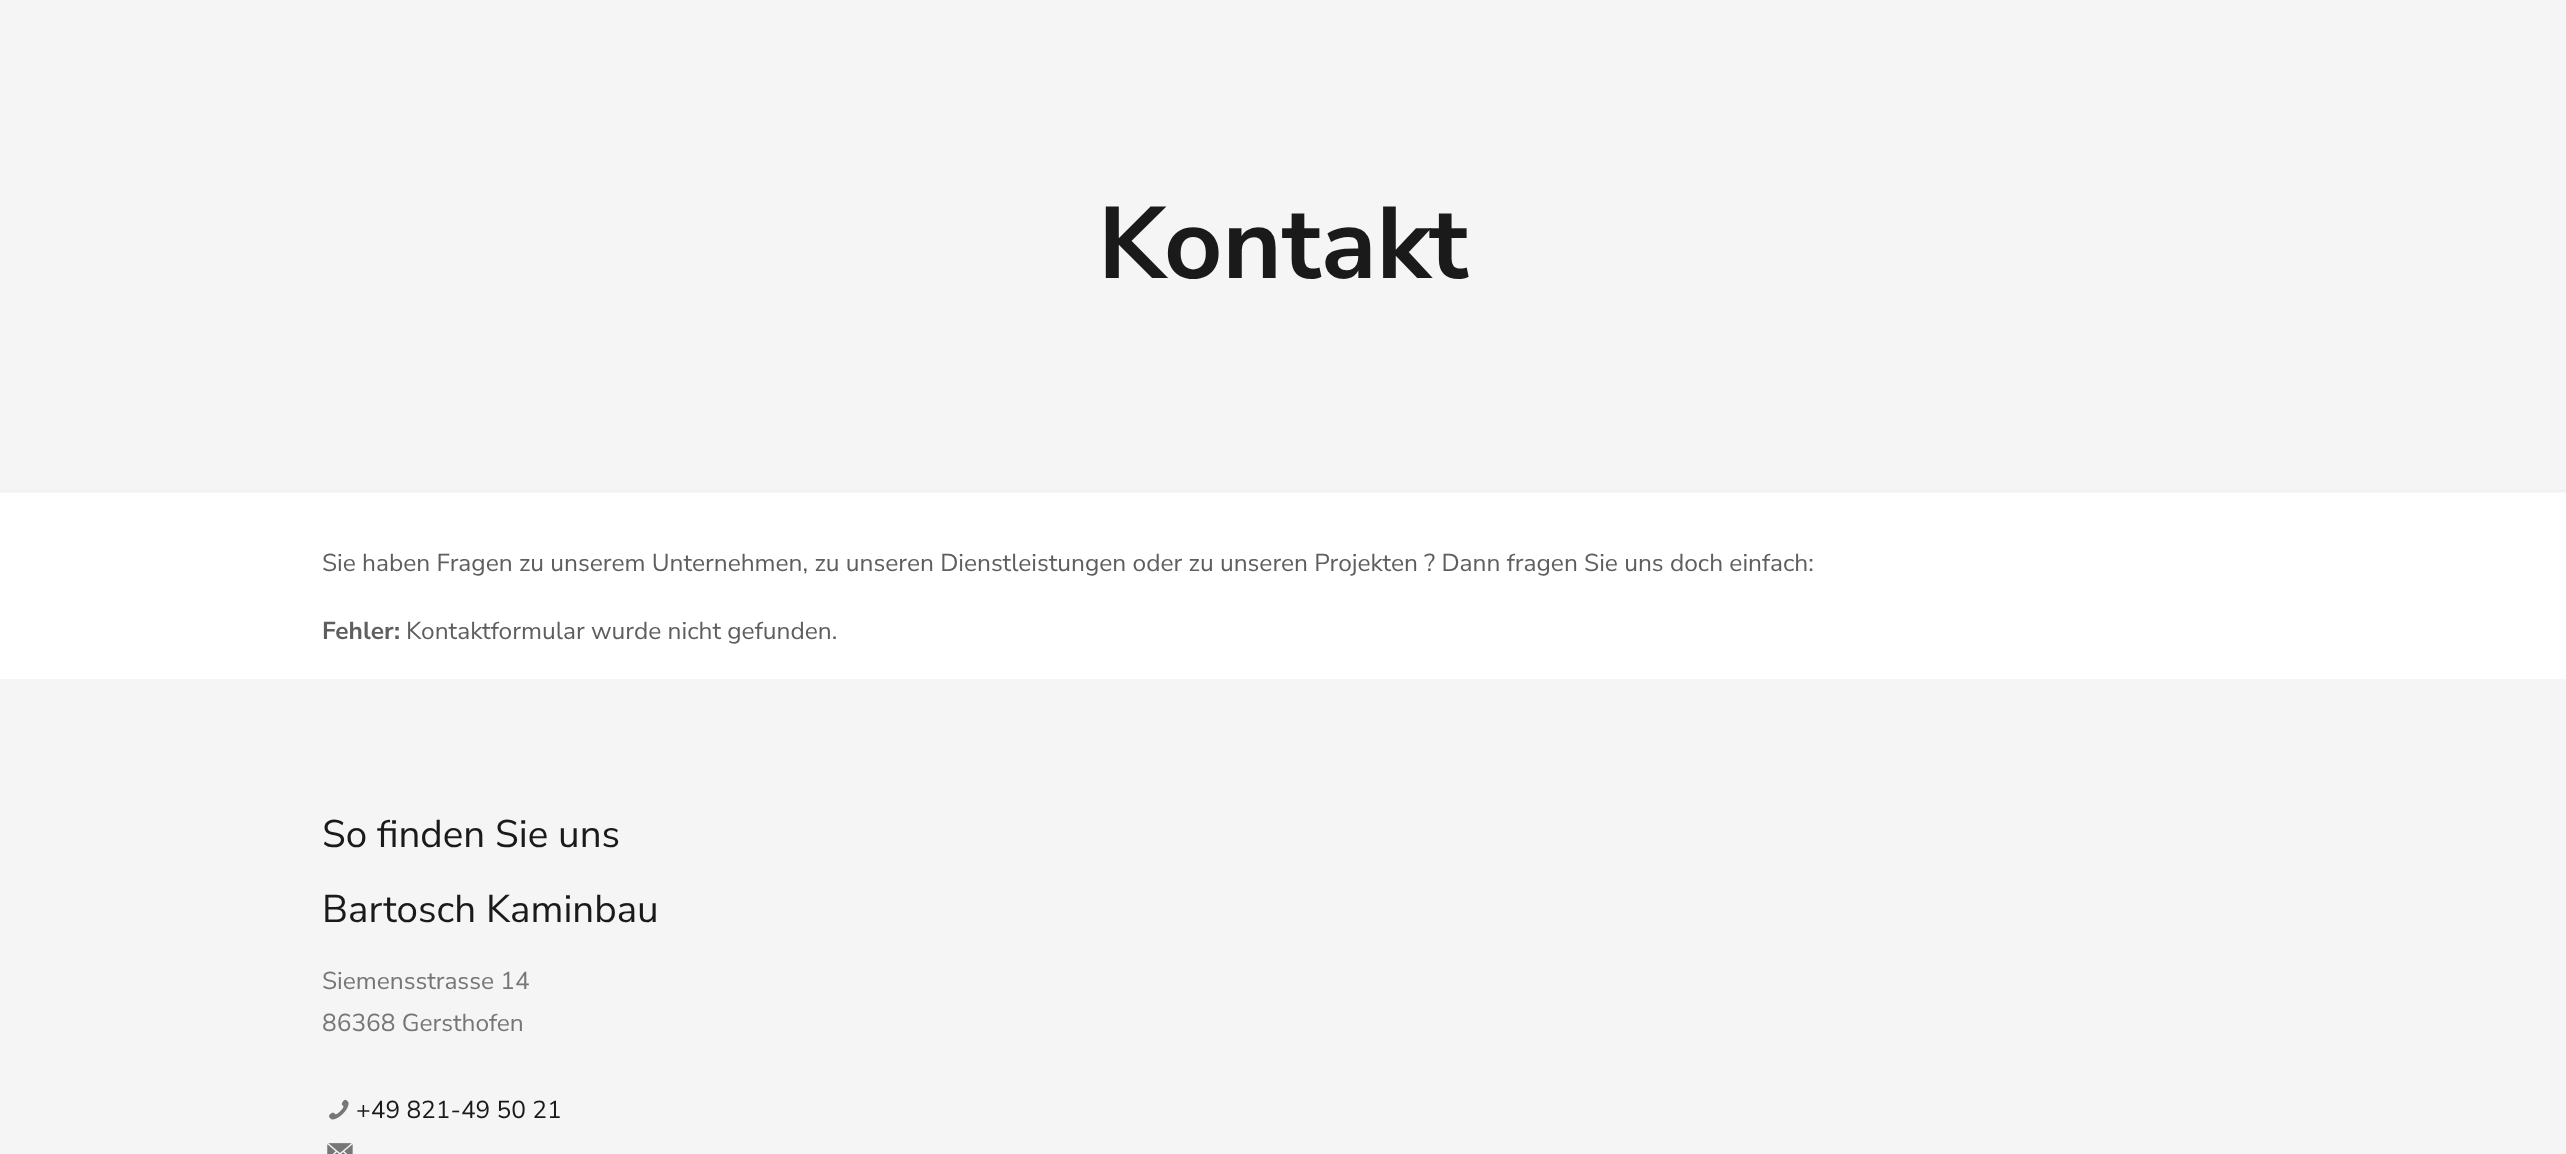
(async () => {
const canvas = document.querySelector("canvas")
canvas.width = 2566
canvas.height = 1154
const c = canvas.getContext("2d")
c.miterLimit = 4
c.fontKerning = "normal"
function T(s,x,y){c.fillText(s,x,y)}
function R(x,y,w,h){c.fillRect(x,y,w,h)}
async function I(src,x,y,w,h){const img=new Image();img.src=src;await img.decode();c.drawImage(img,x,y,w,h)}
c.fillStyle="#fff"
R(0,0,2566,1154)
c.fillStyle="#f5f5f5"
R(0,0,2566,490)
c.font="bold 101.5px Nunito Sans"
c.fillStyle="#1a1a1a"
T("Kontakt",1098,278)
await I("1.png",0,490,2566,3)
c.font="24.5px Nunito Sans"
c.fillStyle="#5e5e5e"
T("Sie haben Fragen zu unserem Unternehmen, zu unseren Dienstleistungen oder zu unseren Projekten ? Dann fragen Sie uns doch einfach:",322,571)
c.font="bold 24.5px Nunito Sans"
T("Fehler:",322,639)
c.font="24.5px Nunito Sans"
T("Kontaktformular wurde nicht gefunden.",406,639)
c.fillStyle="#f5f5f5"
R(0,679,2566,475)
c.font="38.5px Nunito Sans"
c.fillStyle="#1a1a1a"
T("So finden Sie uns",322,847)
T("Bartosch Kaminbau",322,922)
c.font="24.5px Nunito Sans"
c.fillStyle="#767676"
T("Siemensstrasse 14",322,989)
T("86368 Gersthofen",322,1031)
await I("2.png",329,1099,20,21)
c.fillStyle="#1a1a1a"
T("+49 821-49 50 21",356,1118)
await I("3.png",327,1143,26,11)
})()
